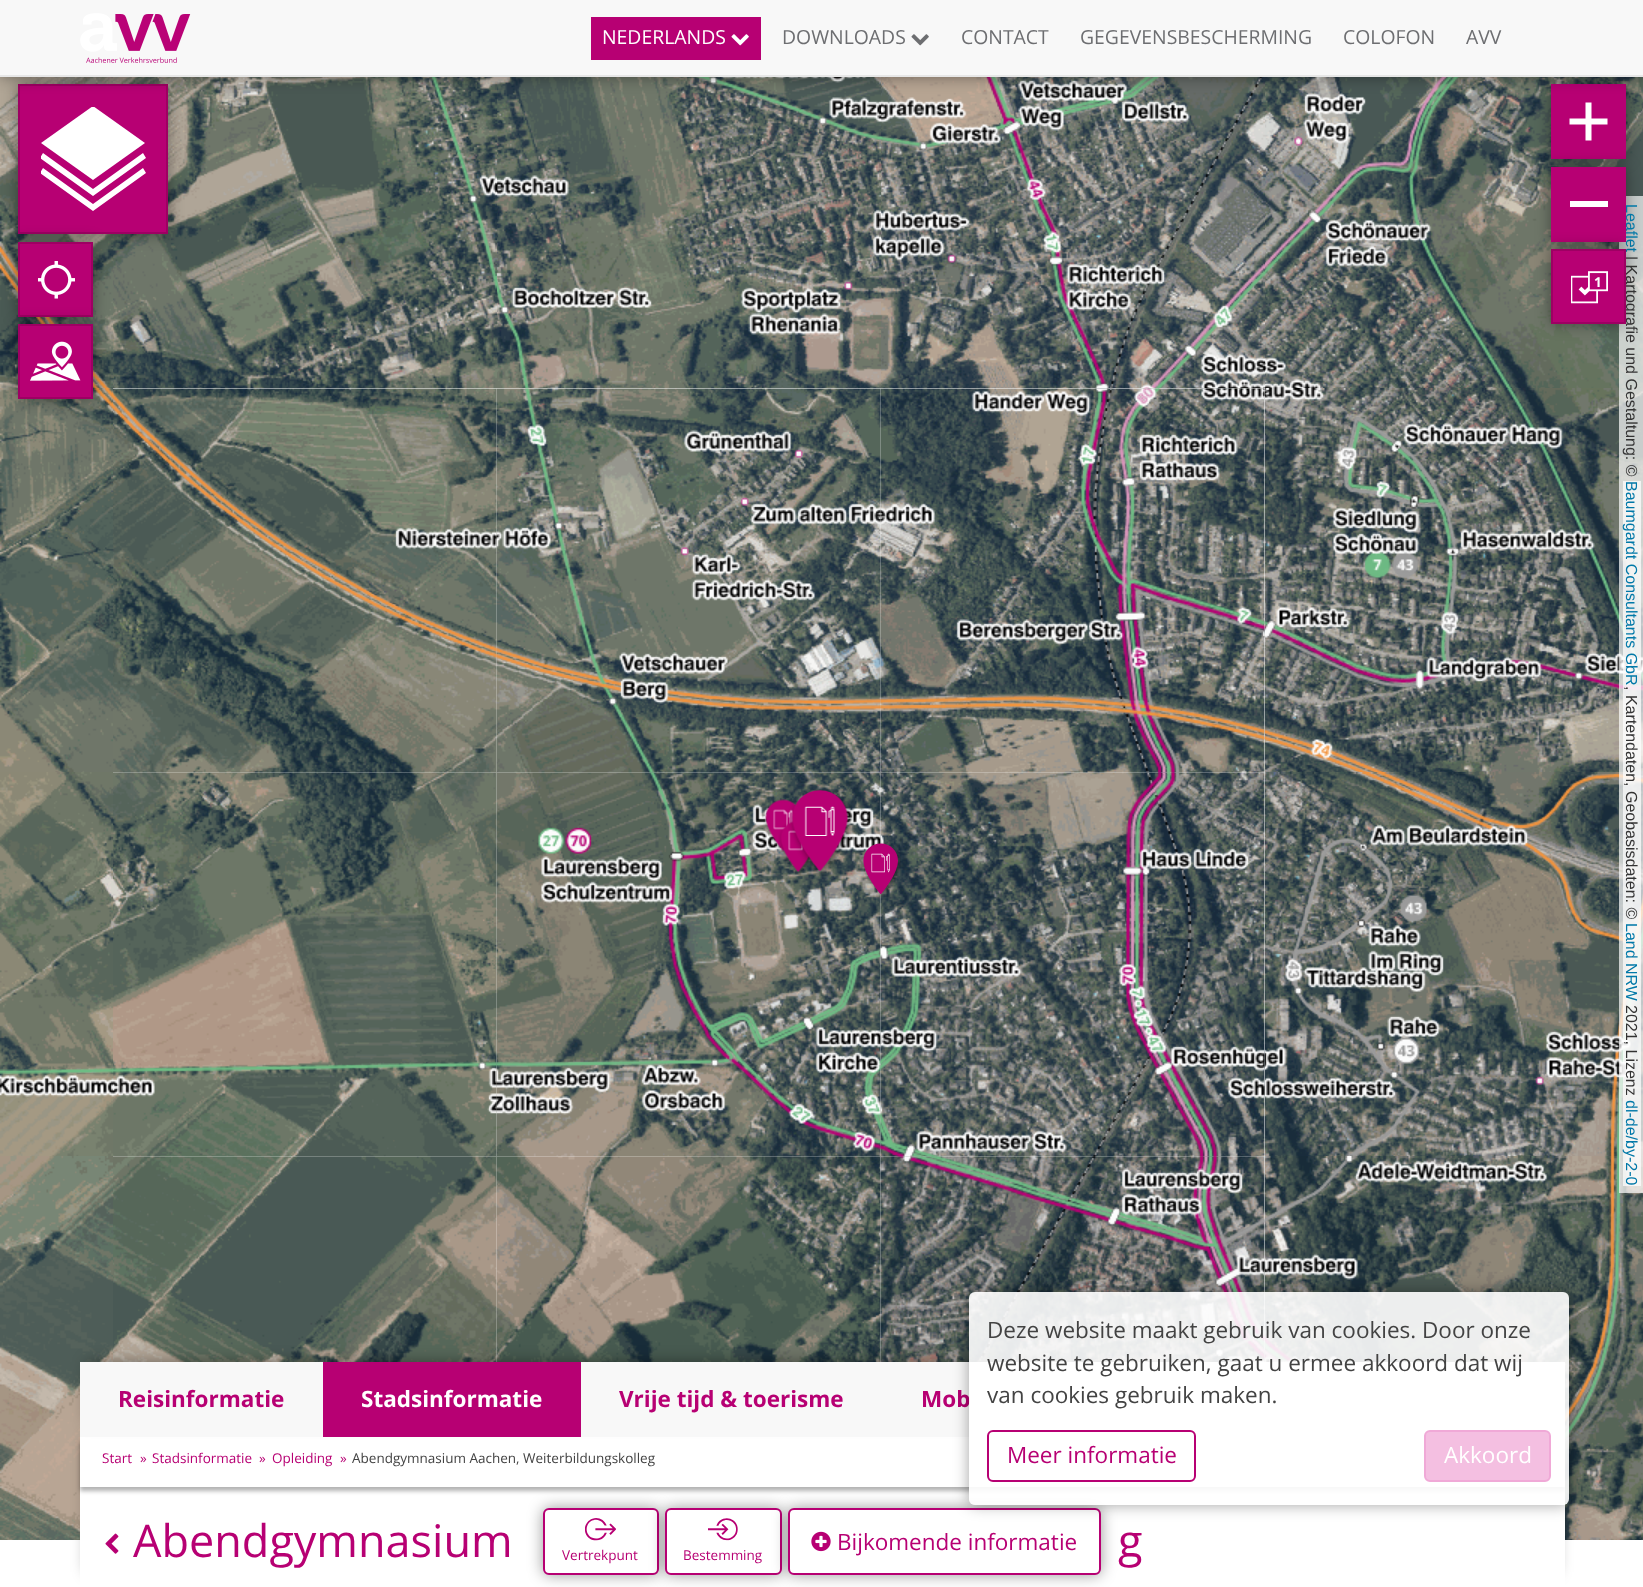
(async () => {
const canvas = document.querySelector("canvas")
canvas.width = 1643
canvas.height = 1587
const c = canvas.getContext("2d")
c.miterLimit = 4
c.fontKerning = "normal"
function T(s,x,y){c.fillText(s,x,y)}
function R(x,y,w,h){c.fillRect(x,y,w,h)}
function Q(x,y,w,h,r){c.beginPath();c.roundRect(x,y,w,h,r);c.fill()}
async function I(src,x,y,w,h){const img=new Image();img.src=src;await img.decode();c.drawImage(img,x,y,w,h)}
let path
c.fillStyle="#fff"
R(0,0,1643,1587)
await I("7.png",0,77,113,311)
await I("8.png",113,77,384,311)
await I("27.png",0,245,109,143)
c.fillStyle="#00000066"
c.filter="blur(7.5px)"
c.beginPath()
c.rect(18,84,150,150)
c.fill()
c.filter="none"
c.fillStyle="#b70073"
c.beginPath()
c.rect(19,85,148,148)
c.fill()
c.strokeStyle="#9e0063"
c.lineWidth=2
c.stroke()
await I("11.png",1265,77,378,311)
c.fillStyle="#00000066"
c.filter="blur(7.5px)"
c.beginPath()
c.rect(1551,84,75,75)
c.fill()
c.filter="none"
c.fillStyle="#b70073"
R(1551,84,75,75)
await I("9.png",497,77,384,311)
await I("10.png",881,77,384,311)
await I("28.png",431,77,66,214)
await I("29.png",497,77,384,311)
await I("30.png",881,77,384,311)
await I("31.png",1265,77,247,311)
c.fillStyle="#00000066"
c.filter="blur(7.5px)"
c.beginPath()
c.rect(0,0,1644,77)
c.fill()
c.filter="none"
c.fillStyle="#f8f8f8"
R(0,0,1643,75)
c.fillStyle="#e7e7e7"
R(0,75,1643,2)
await I("1.png",80,13,111,50)
c.fillStyle="#b70073"
R(591,17,170,43)
c.font="19.4px Open Sans"
c.fillStyle="#fff"
T("NEDERLANDS",602,44)
await I("2.png",731,34,18,12)
c.fillStyle="#6d6e71"
T("DOWNLOADS",782,44)
await I("3.png",911,34,18,12)
T("CONTACT",961,44)
T("GEGEVENSBESCHERMING",1080,44)
T("COLOFON",1343,44)
T("AVV",1466,44)
c.save()
c.beginPath()
c.rect(41,107,105,105)
c.clip()
c.fillStyle="#fff"
path = new Path2D("M93 180l-52-37l52-37l52 37z")
c.fill(path)
path = new Path2D("M93 211l-53-38l3-5l50 36l50-36l3 5z")
c.fill(path)
path = new Path2D("M93 196l-53-38l3-5l50 36l50-36l3 5z")
c.fill(path)
c.restore()
c.fillStyle="#00000066"
c.filter="blur(7.5px)"
c.beginPath()
c.rect(18,242,75,75)
c.fill()
c.filter="none"
c.fillStyle="#b70073"
R(20,244,71,71)
await I("4.png",38,261,37,38)
c.strokeRect(19,243,73,73)
await I("12.png",0,388,113,384)
await I("19.png",496,772,385,385)
await I("14.png",496,388,385,385)
await I("18.png",113,772,384,385)
await I("13.png",113,388,384,385)
await I("20.png",880,772,385,385)
await I("15.png",880,388,385,385)
await I("39.png",496,772,385,381)
await I("34.png",496,388,385,385)
await I("33.png",112,392,385,266)
await I("32.png",94,388,19,21)
c.fillStyle="#00000066"
c.filter="blur(7.5px)"
c.beginPath()
c.rect(18,324,75,75)
c.fill()
c.filter="none"
c.fillStyle="#b70073"
c.beginPath()
c.rect(19,325,73,73)
c.fill()
c.stroke()
await I("5.png",30,341,51,40)
c.fillStyle="#fff"
path = new Path2D("M1607.5 118.5h-16v-16h-6v16h-16v6h16v16h6v-16h16z")
c.fill(path)
await I("16.png",1265,388,378,384)
await I("21.png",1265,772,378,384)
await I("26.png",1265,1156,378,384)
await I("36.png",1265,388,378,384)
await I("41.png",1265,772,378,384)
await I("43.png",1265,1156,356,284)
c.fillStyle="#ffffffb3"
R(1619,196,24,997)
c.fillStyle="#00000066"
c.filter="blur(7.5px)"
c.beginPath()
c.rect(1551,167,75,75)
c.fill()
c.filter="none"
c.font="16px Liberation Sans"
c.fillStyle="#0078a8"
c.save()
c.translate(1626,204)
c.rotate(90 * Math.PI / 180)
c.fillText("Leaflet",0,0)
c.restore()
c.fillStyle="#b70073"
R(1551,167,75,75)
c.fillStyle="#fff"
R(1570,201,38,6)
c.fillStyle="#00000066"
c.filter="blur(7.5px)"
c.beginPath()
c.rect(1551,249,75,75)
c.fill()
c.filter="none"
c.fillStyle="#333"
c.save()
c.translate(1626,256)
c.rotate(90 * Math.PI / 180)
c.fillText("| Kartografie und Gestaltung: ©",0,0)
c.restore()
c.fillStyle="#b70073"
R(1553,251,71,71)
await I("6.png",1571,271,37,33)
c.strokeRect(1552,250,73,73)
c.font="bold 13.5px Open Sans"
c.fillStyle="#fff"
T("1",1594,287)
await I("17.png",0,772,113,384)
await I("22.png",0,1156,113,384)
await I("24.png",496,1156,385,206)
await I("23.png",113,1156,384,206)
await I("25.png",880,1156,385,206)
await I("40.png",880,772,385,385)
await I("35.png",880,388,385,385)
await I("38.png",112,1061,385,53)
await I("37.png",0,1068,113,29)
await I("42.png",898,1156,367,206)
await I("44.png",763,799,35,55)
await I("46.png",778,820,35,55)
await I("45.png",788,789,67,87)
await I("47.png",861,842,40,55)
c.fillStyle="#ffffffb3"
R(1623,481,18,205)
c.font="16px Liberation Sans"
c.fillStyle="#0078a8"
c.save()
c.translate(1626,481)
c.rotate(90 * Math.PI / 180)
c.fillText("Baumgardt Consultants GbR",0,0)
c.restore()
c.fillStyle="#ffffffb3"
R(1623,686,18,237)
c.fillStyle="#333"
c.save()
c.translate(1626,686)
c.rotate(90 * Math.PI / 180)
c.fillText(", Kartendaten, Geobasisdaten: ©",0,0)
c.restore()
c.fillStyle="#ffffffb3"
R(1623,923,18,78)
c.fillStyle="#0078a8"
c.save()
c.translate(1626,923)
c.rotate(90 * Math.PI / 180)
c.fillText("Land NRW",0,0)
c.restore()
c.fillStyle="#ffffffb3"
R(1623,1001,18,99)
c.fillStyle="#333"
c.save()
c.translate(1626,1005)
c.rotate(90 * Math.PI / 180)
c.fillText("2021, Lizenz",0,0)
c.restore()
c.fillStyle="#ffffffb3"
R(1623,1100,18,86)
c.fillStyle="#0078a8"
c.save()
c.translate(1626,1100)
c.rotate(90 * Math.PI / 180)
c.fillText("dl-de/by-2-0",0,0)
c.restore()
c.fillStyle="#00000066"
c.filter="blur(7.5px)"
c.beginPath()
c.rect(87,1437,1470,135)
c.fill()
c.filter="none"
c.fillStyle="#fff"
R(80,1487,1485,100)
c.fillStyle="#0000004d"
c.filter="blur(2px)"
c.beginPath()
c.rect(80,1442,1485,49)
c.fill()
c.filter="none"
c.fillStyle="#fff"
R(80,1437,1485,50)
c.fillStyle="#00000066"
c.filter="blur(7.5px)"
c.beginPath()
c.rect(87,1362,1470,60)
c.fill()
c.filter="none"
c.fillStyle="#f8f8f8"
R(80,1362,243,75)
c.font="bold 22.5px Open Sans"
c.fillStyle="#b70073"
T("Reisinformatie",118,1407)
R(323,1362,258,75)
c.fillStyle="#fff"
T("Stadsinformatie",361,1407)
c.fillStyle="#f8f8f8"
R(581,1362,984,75)
c.fillStyle="#b70073"
T("Vrije tijd & toerisme",619,1407)
T("Mob",921,1407)
c.font="13.5px Open Sans"
T("Start",102,1463)
T("»",140,1463)
T("Stadsinformatie",152,1463)
T("»",259,1463)
T("Opleiding",272,1463)
T("»",340,1463)
c.fillStyle="#434343"
T("Abendgymnasium Aachen, Weiterbildungskolleg",352,1463)
await I("48.png",105,1533,14,21)
c.font="45px Open Sans"
c.fillStyle="#b70073"
T("Abendgymnasium",133,1557)
T("g",1118,1557)
c.fillStyle="#00000066"
c.filter="blur(7.5px)"
c.beginPath()
c.roundRect(543,1508,116,67,6)
c.fill()
c.filter="none"
c.fillStyle="#fff"
c.beginPath()
c.roundRect(544,1509,114,65,5)
c.fill()
c.strokeStyle="#b70073"
c.stroke()
await I("49.png",585,1518,31,23)
c.font="13.5px Open Sans"
c.fillStyle="#b70073"
T("Vertrekpunt",562,1560)
c.fillStyle="#00000066"
c.filter="blur(7.5px)"
c.beginPath()
c.roundRect(665,1508,117,67,6)
c.fill()
c.filter="none"
c.fillStyle="#fff"
c.beginPath()
c.roundRect(666,1509,115,65,5)
c.fill()
c.stroke()
await I("50.png",708,1518,30,23)
c.fillStyle="#b70073"
T("Bestemming",683,1560)
c.fillStyle="#00000066"
c.filter="blur(7.5px)"
c.beginPath()
c.roundRect(788,1508,313,67,6)
c.fill()
c.filter="none"
c.fillStyle="#fff"
c.beginPath()
c.roundRect(789,1509,311,65,5)
c.fill()
c.stroke()
await I("51.png",811,1531,20,21)
c.font="22.5px Open Sans"
c.fillStyle="#b70073"
T("Bijkomende informatie",837,1550)
c.save()
path = new Path2D("M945 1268h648v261h-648zm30 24h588c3.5 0 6 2.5 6 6v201c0 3.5-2.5 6-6 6h-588c-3.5 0-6-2.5-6-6v-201c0-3.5 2.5-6 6-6z")
c.clip(path,"evenodd")
c.fillStyle="#0000005c"
c.filter="blur(7.5px)"
c.beginPath()
c.roundRect(969,1292,600,213,6)
c.fill()
c.filter="none"
c.restore()
c.fillStyle="#ffffffe6"
Q(969,1292,600,213,6)
c.fillStyle="#434343"
T("Deze website maakt gebruik van cookies. Door onze",987,1338)
T("website te gebruiken, gaat u ermee akkoord dat wij",987,1371)
T("van cookies gebruik maken.",987,1403)
c.beginPath()
c.roundRect(988,1431,207,50,5)
c.stroke()
c.fillStyle="#b70073"
T("Meer informatie",1007,1463)
c.fillStyle="#f4bfe1"
c.beginPath()
c.roundRect(1425,1431,125,50,5)
c.fill()
c.strokeStyle="#f0a9d7"
c.stroke()
c.fillStyle="#fff"
T("Akkoord",1444,1463)
})()
